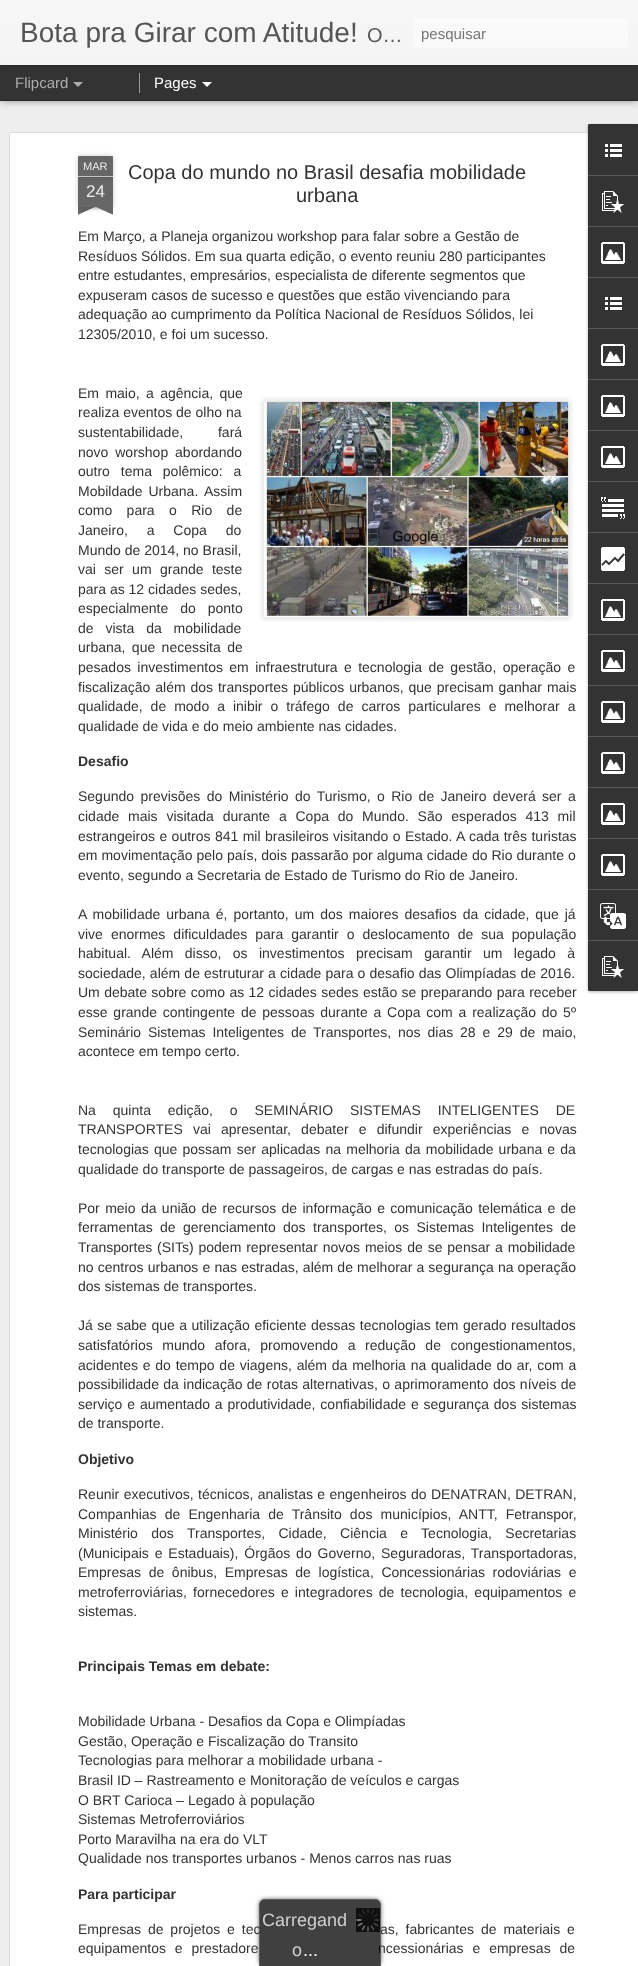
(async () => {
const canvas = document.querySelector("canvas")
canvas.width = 638
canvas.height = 1966
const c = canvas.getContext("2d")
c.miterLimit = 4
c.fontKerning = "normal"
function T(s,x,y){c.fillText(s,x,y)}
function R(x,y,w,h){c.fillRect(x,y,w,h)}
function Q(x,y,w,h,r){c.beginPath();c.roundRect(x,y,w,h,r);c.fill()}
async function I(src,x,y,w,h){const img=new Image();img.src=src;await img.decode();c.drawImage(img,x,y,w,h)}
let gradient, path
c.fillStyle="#333"
R(0,0,638,1966)
c.fillStyle="#eee"
R(0,101,638,1865)
c.fillStyle="#00000080"
c.filter="blur(4px)"
c.beginPath()
c.rect(0,65,638,35)
c.fill()
c.filter="none"
c.fillStyle="#333"
R(0,65,638,35)
c.fillStyle="#999"
R(139,73,1,20)
c.fillStyle="#0000004d"
c.filter="blur(2.5px)"
c.beginPath()
c.rect(0,0,638,65)
c.fill()
c.filter="none"
gradient = c.createLinearGradient(0,0,0,65)
gradient.addColorStop(0,"#f7f7f7")
gradient.addColorStop(1,"#f4f4f4")
c.fillStyle = gradient
R(0,0,638,65)
c.font="28px Liberation Sans"
c.fillStyle="#555"
T("Bota pra Girar com Atitude!",20,42)
c.font="20px Liberation Sans"
T("O…",367,42)
c.fillStyle="#fafafa"
Q(414,18,214,30,3)
c.save()
c.beginPath()
c.rect(421,25,200,17)
c.clip()
c.font="15px Liberation Sans"
c.fillStyle="#757575"
T("pesquisar",421,39)
c.restore()
c.font="15px Liberation Sans"
c.fillStyle="#adadad"
T("Flipcard",15,88)
path = new Path2D("M73 82h10l-5 5z")
c.fill(path)
c.fillStyle="#fff"
T("Pages",154,88)
path = new Path2D("M202 82h10l-5 5z")
c.fill(path)
R(8,131,630,1835)
await I("1.png",8,131,580,1835)
c.fillStyle="#00000033"
c.filter="blur(2.5px)"
c.beginPath()
c.rect(78,177,35,30)
c.fill()
c.filter="none"
c.fillStyle="#666"
R(78,177,35,30)
c.fillStyle="#00000033"
c.filter="blur(2.5px)"
c.beginPath()
c.roundRect(78,156,35,21,1)
c.fill()
c.filter="none"
c.fillStyle="#666"
c.beginPath()
c.roundRect(78,156,35,21,[1,1,0,0])
c.fill()
c.fillStyle="#c2c2c2"
R(78,176,35,1)
c.font="11px Liberation Sans"
c.fillStyle="#eee"
T("MAR",83,170)
c.font="17px Liberation Sans"
T("24",86,197)
c.save()
c.beginPath()
c.rect(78,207,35,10)
c.clip()
c.fillStyle="#00000033"
c.filter="blur(2.5px)"
c.beginPath()
c.rect(69,197,50,10)
c.fill()
c.filter="none"
c.restore()
c.save()
c.beginPath()
c.rect(78,207,35,10)
c.clip()
c.fillStyle="#666"
path = new Path2D("M69 208l46-21l4 9l-46 21z")
c.fill(path)
c.restore()
c.save()
c.beginPath()
c.rect(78,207,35,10)
c.clip()
c.fillStyle="#00000033"
c.filter="blur(2.5px)"
c.beginPath()
c.rect(72,197,50,10)
c.fill()
c.filter="none"
c.restore()
c.save()
c.beginPath()
c.rect(78,207,35,10)
c.clip()
c.fillStyle="#666"
path = new Path2D("M76 187l46 21l-4 9l-46-21z")
c.fill(path)
c.restore()
c.font="20px Liberation Sans"
c.fillStyle="#333"
T("Copa do mundo no Brasil desafia mobilidade",128,179)
T("urbana",296,202)
c.font="14px Liberation Sans"
T("Em Março, a Planeja organizou workshop para falar sobre a Gestão de",78,241)
T("Resíduos Sólidos. Em sua quarta edição, o evento reuniu 280 participantes",78,261)
T("entre estudantes, empresários, especialista de diferente segmentos que",78,280)
T("expuseram casos de sucesso e questões que estão vivenciando para",78,300)
T("adequação ao cumprimento da Política Nacional de Resíduos Sólidos, lei",78,319)
T("12305/2010, e foi um sucesso.",78,339)
c.wordSpacing="2.5px"
T("Em maio, a agência, que",78,398)
c.wordSpacing="0px"
T("realiza eventos de olho na",78,417)
await I("2.png",259,397,314,225)
await I("3.png",265,401,304,216)
c.wordSpacing="31px"
T("sustentabilidade, fará",78,437)
c.wordSpacing="3px"
T("novo worshop abordando",78,457)
c.wordSpacing="7px"
T("outro tema polêmico: a",78,476)
c.wordSpacing="2px"
T("Mobildade Urbana.",78,496)
c.wordSpacing="0px"
T("Assim",204,496)
c.wordSpacing="10.5px"
T("como para o Rio de",78,515)
c.wordSpacing="15px"
T("Janeiro, a Copa do",78,535)
c.wordSpacing="0px"
T("Mundo de 2014, no Brasil,",78,555)
c.wordSpacing="4.5px"
T("vai ser um grande teste",78,574)
c.wordSpacing="0px"
T("para as 12 cidades sedes,",78,594)
c.wordSpacing="8px"
T("especialmente do ponto",78,613)
T("de vista da mobilidade",78,633)
c.wordSpacing="2.5px"
T("urbana, que necessita de",78,652)
T("pesados investimentos em infraestrutura e tecnologia de gestão, operação e",78,672)
c.wordSpacing="1px"
T("fiscalização além dos transportes públicos urbanos, que precisam ganhar mais",78,692)
c.wordSpacing="4.1px"
T("qualidade, de modo a inibir o tráfego de carros particulares e melhorar a",78,711)
c.wordSpacing="0px"
T("qualidade de vida e do meio ambiente nas cidades.",78,731)
c.font="bold 14px Liberation Sans"
T("Desafio",78,766)
c.wordSpacing="2.5px"
c.font="14px Liberation Sans"
T("Segundo previsões do Ministério do Turismo, o Rio de Janeiro deverá ser a",78,801)
c.wordSpacing="4.9px"
T("cidade mais visitada durante a Copa do Mundo. São esperados 413 mil",78,821)
c.wordSpacing="0.5px"
T("estrangeiros e outros 841 mil brasileiros visitando o Estado. A cada três turistas",78,841)
c.wordSpacing="0.1px"
T("em movimentação pelo país, dois passarão por alguma cidade do Rio durante o",78,860)
c.wordSpacing="0px"
T("evento, segundo a Secretaria de Estado de Turismo do Rio de Janeiro.",78,880)
c.wordSpacing="2.1px"
T("A mobilidade urbana é, portanto, um dos maiores desafios da cidade, que já",78,919)
c.wordSpacing="4.1px"
T("vive enormes dificuldades para garantir o deslocamento de sua população",78,939)
c.wordSpacing="7.5px"
T("habitual. Além disso, os investimentos precisam garantir um legado à",78,958)
c.wordSpacing="0.25px"
T("sociedade, além de estruturar a cidade para o desafio das Olimpíadas de 2016.",78,978)
c.wordSpacing="0.5px"
T("Um debate sobre como as 12 cidades sedes estão se preparando para receber",78,997)
c.wordSpacing="1.9px"
T("esse grande contingente de pessoas durante a Copa com a realização do 5º",78,1017)
c.wordSpacing="3px"
T("Seminário Sistemas Inteligentes de Transportes, nos dias 28 e 29 de maio,",78,1037)
c.wordSpacing="0px"
T("acontece em tempo certo.",78,1056)
c.wordSpacing="13px"
T("Na quinta edição, o SEMINÁRIO SISTEMAS INTELIGENTES DE",78,1115)
c.wordSpacing="6.25px"
T("TRANSPORTES vai apresentar, debater e difundir experiências e novas",78,1134)
c.wordSpacing="1.25px"
T("tecnologias que possam ser aplicadas na melhoria da mobilidade urbana e da",78,1154)
c.wordSpacing="0px"
T("qualidade do transporte de passageiros, de cargas e nas estradas do país.",78,1174)
c.wordSpacing="1.5px"
T("Por meio da união de recursos de informação e comunicação telemática e de",78,1213)
c.wordSpacing="3.5px"
T("ferramentas de gerenciamento dos transportes, os Sistemas Inteligentes de",78,1232)
c.wordSpacing="1px"
T("Transportes (SITs) podem representar novos meios de se pensar a mobilidade",78,1252)
c.wordSpacing="0.25px"
T("no centros urbanos e nas estradas, além de melhorar a segurança na operação",78,1272)
c.wordSpacing="0px"
T("dos sistemas de transportes.",78,1291)
c.wordSpacing="0.6px"
T("Já se sabe que a utilização eficiente dessas tecnologias tem gerado resultados",78,1330)
c.wordSpacing="5.75px"
T("satisfatórios mundo afora, promovendo a redução de congestionamentos,",78,1350)
c.wordSpacing="0.9px"
T("acidentes e do tempo de viagens, além da melhoria na qualidade do ar, com a",78,1370)
c.wordSpacing="0.5px"
T("possibilidade da indicação de rotas alternativas, o aprimoramento dos níveis de",78,1389)
c.wordSpacing="1px"
T("serviço e aumentado a produtividade, confiabilidade e segurança dos sistemas",78,1409)
c.wordSpacing="0px"
T("de transporte.",78,1428)
c.font="bold 14px Liberation Sans"
T("Objetivo",78,1464)
c.wordSpacing="0.5px"
c.font="14px Liberation Sans"
T("Reunir executivos, técnicos, analistas e engenheiros do DENATRAN, DETRAN,",78,1499)
c.wordSpacing="4.25px"
T("Companhias de Engenharia de Trânsito dos municípios, ANTT, Fetranspor,",78,1519)
c.wordSpacing="9.5px"
T("Ministério dos Transportes, Cidade, Ciência e Tecnologia, Secretarias",78,1538)
c.wordSpacing="2px"
T("(Municipais e Estaduais), Órgãos do Governo, Seguradoras, Transportadoras,",78,1558)
c.wordSpacing="3.75px"
T("Empresas de ônibus, Empresas de logística, Concessionárias rodoviárias e",78,1577)
c.wordSpacing="2.25px"
T("metroferroviárias, fornecedores e integradores de tecnologia, equipamentos e",78,1597)
c.wordSpacing="0px"
T("sistemas.",78,1616)
c.font="bold 14px Liberation Sans"
T("Principais Temas em debate:",78,1671)
c.font="14px Liberation Sans"
T("Mobilidade Urbana - Desafios da Copa e Olimpíadas",78,1726)
T("Gestão, Operação e Fiscalização do Transito",78,1746)
T("Tecnologias para melhorar a mobilidade urbana -",78,1765)
T("Brasil ID – Rastreamento e Monitoração de veículos e cargas",78,1785)
T("O BRT Carioca – Legado à população",78,1805)
T("Sistemas Metroferroviários",78,1824)
T("Porto Maravilha na era do VLT",78,1844)
T("Qualidade nos transportes urbanos - Menos carros nas ruas",78,1863)
c.font="bold 14px Liberation Sans"
T("Para participar",78,1899)
c.wordSpacing="3px"
c.font="14px Liberation Sans"
T("Empresas de projetos e tec",78,1934)
T("as, fabricantes de materiais e",380,1934)
c.wordSpacing="5px"
T("equipamentos e prestadore",78,1953)
T("ncessionárias e empresas de",378,1953)
c.fillStyle="#0000004d"
c.filter="blur(1.5px)"
c.beginPath()
c.roundRect(588,125,50,867,2)
c.fill()
c.filter="none"
c.fillStyle="#333"
c.beginPath()
c.roundRect(588,124,50,867,[2,0,0,2])
c.fill()
c.beginPath()
c.roundRect(588,124,50,51,[2,0,0,0])
c.fill()
await I("4.png",605,144,17,13)
c.fillStyle="#585858"
R(588,175,50,1)
await I("5.png",602,191,22,22)
R(588,226,50,1)
await I("6.png",601,242,24,22)
R(588,277,50,1)
await I("4.png",605,297,17,13)
R(588,328,50,1)
await I("6.png",601,344,24,22)
R(588,379,50,1)
await I("6.png",601,395,24,22)
R(588,430,50,1)
await I("6.png",601,446,24,22)
R(588,481,50,1)
await I("7.png",601,497,24,22)
R(588,532,50,1)
await I("8.png",601,547,24,24)
R(588,583,50,1)
await I("6.png",601,599,24,22)
R(588,634,50,1)
await I("6.png",601,650,24,22)
R(588,685,50,1)
await I("6.png",601,701,24,22)
R(588,736,50,1)
await I("6.png",601,752,24,22)
R(588,787,50,1)
await I("6.png",601,803,24,22)
R(588,838,50,1)
await I("6.png",601,854,24,22)
R(588,889,50,1)
await I("9.png",600,903,26,26)
c.fillStyle="#333"
c.beginPath()
c.roundRect(588,940,50,51,[0,0,0,2])
c.fill()
c.fillStyle="#585858"
R(588,940,50,1)
await I("5.png",602,956,22,22)
c.save()
path = new Path2D("M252 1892h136v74h-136zm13 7h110c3.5 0 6 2.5 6 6v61h-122v-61c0-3.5 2.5-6 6-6z")
c.clip(path,"evenodd")
c.fillStyle="#333333bf"
c.filter="blur(2px)"
c.beginPath()
c.roundRect(259,1899,122,67,6)
c.fill()
c.filter="none"
c.restore()
c.fillStyle="#000000bf"
c.beginPath()
c.roundRect(259,1899,122,67,[6,6,0,0])
c.fill()
c.fillStyle="#666666bf"
path = new Path2D("M265 1899h110c3 0 6 3 6 6v61h-122v-61c0-3 3-6 6-6zm0 1h110c3 0 5 2 5 5v61h-120v-61c0-3 2-5 5-5z")
c.fill(path,"evenodd")
await I("10.png",356,1908,24,24)
c.wordSpacing="0px"
c.font="18px Liberation Sans"
c.fillStyle="#cfcfcf"
T("Carregand",262,1926)
T("o",292,1956)
c.fillStyle="#fff"
T("...",303,1956)
})()
